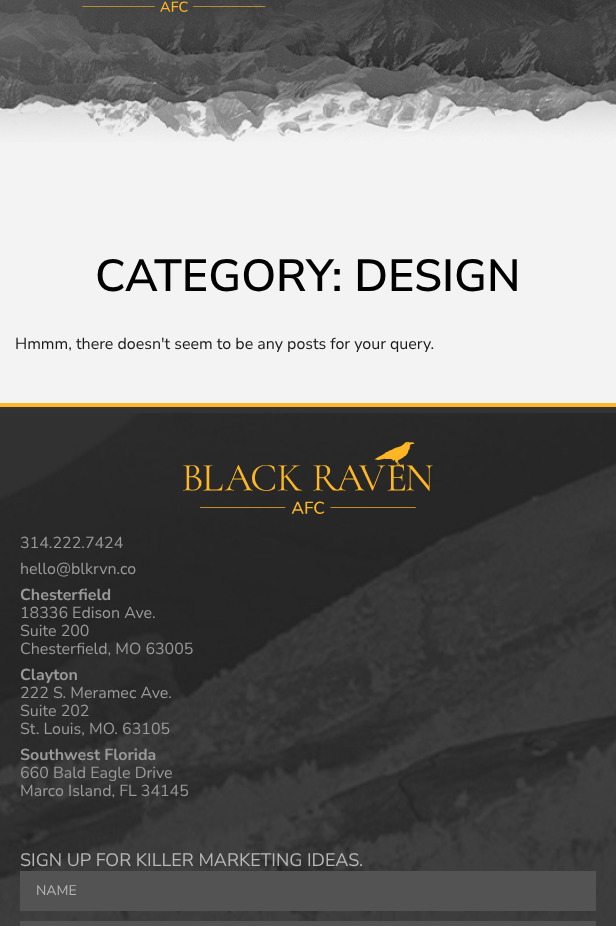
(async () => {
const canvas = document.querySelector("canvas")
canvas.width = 616
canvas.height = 926
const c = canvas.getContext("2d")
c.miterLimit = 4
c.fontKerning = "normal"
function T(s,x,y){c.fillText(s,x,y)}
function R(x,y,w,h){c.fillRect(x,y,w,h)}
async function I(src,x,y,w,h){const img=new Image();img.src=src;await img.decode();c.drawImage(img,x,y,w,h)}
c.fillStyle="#f2f3f2"
R(0,0,616,926)
await I("2.png",0,0,616,142)
await I("1.png",82,1,184,11)
c.font="600 45px Nunito Sans"
c.fillStyle="#000"
T("CATEGORY: DESIGN",95,291)
c.font="16px Nunito Sans"
c.fillStyle="#191919"
T("Hmmm, there doesn't seem to be any posts for your query.",15,349)
c.fillStyle="#333"
R(0,407,616,6)
await I("3.png",0,413,616,513)
c.fillStyle="#ffb624"
R(0,403,616,4)
await I("4.png",183,442,250,72)
c.fillStyle="#9a9a9a"
T("314.222.7424",20,548)
T("hello@blkrvn.co",20,574)
c.font="bold 16px Nunito Sans"
T("Chesterfield",20,600)
c.font="16px Nunito Sans"
T("18336 Edison Ave.",20,618)
T("Suite 200",20,636)
T("Chesterfield, MO 63005",20,654)
c.font="bold 16px Nunito Sans"
T("Clayton",20,680)
c.font="16px Nunito Sans"
T("222 S. Meramec Ave.",20,698)
T("Suite 202",20,716)
T("St. Louis, MO. 63105",20,734)
c.font="bold 16px Nunito Sans"
T("Southwest Florida",20,760)
c.font="16px Nunito Sans"
T("660 Bald Eagle Drive",20,778)
T("Marco Island, FL 34145",20,796)
c.font="18px Nunito Sans"
c.fillStyle="#b7b7b7"
T("SIGN UP FOR KILLER MARKETING IDEAS.",20,866)
c.fillStyle="#535353"
R(20,871,576,40)
c.font="14px Nunito Sans"
c.fillStyle="#b7b7b7"
T("NAME",36,895)
c.fillStyle="#535353"
R(20,921,576,5)
})()
